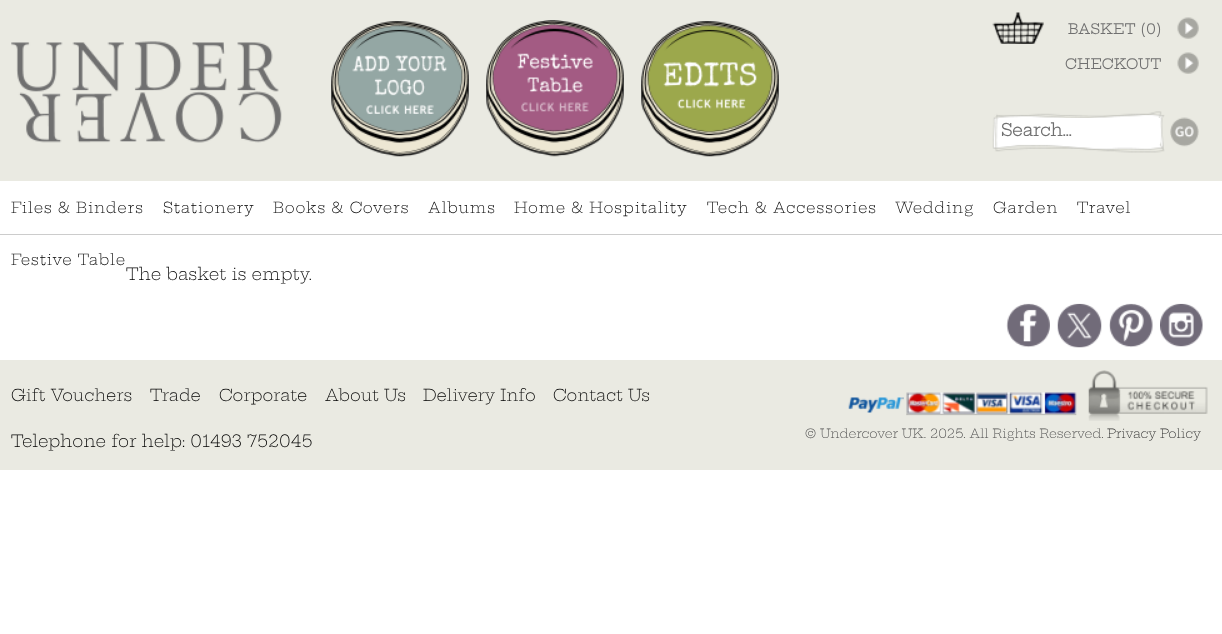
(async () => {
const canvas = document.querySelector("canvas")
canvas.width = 1222
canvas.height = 634
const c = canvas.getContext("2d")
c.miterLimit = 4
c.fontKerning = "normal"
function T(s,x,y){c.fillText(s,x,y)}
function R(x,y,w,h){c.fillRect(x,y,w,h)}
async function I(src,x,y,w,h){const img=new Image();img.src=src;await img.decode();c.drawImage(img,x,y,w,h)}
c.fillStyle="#fff"
R(0,0,1222,634)
c.fillStyle="#eaeae2"
R(0,0,1222,181)
await I("1.png",11,41,271,102)
await I("2.png",331,21,138,136)
await I("3.png",486,20,138,137)
await I("4.png",641,21,138,136)
await I("5.png",992,111,173,42)
c.fillStyle="#fff"
R(999,118,161,26)
c.font="bold 16.7px Hepta Slab"
c.fillStyle="#707070"
T("Search...",1001,136)
await I("6.png",1170,117,29,30)
await I("7.png",1177,17,22,22)
await I("8.png",992,12,52,32)
c.letterSpacing="0.75px"
c.font="bold 13.75px Hepta Slab"
T("BASKET (0)",1068,34)
await I("7.png",1177,52,22,22)
T("CHECKOUT",1065,69)
c.fillStyle="#ccc"
R(0,234,1222,1)
c.font="200 15px Hepta Slab"
c.fillStyle="#000"
T("Files & Binders",11,213)
T("Stationery",163,213)
T("Books & Covers",273,213)
T("Albums",428,213)
T("Home & Hospitality",514,213)
T("Tech & Accessories",707,213)
T("Wedding",895,213)
T("Garden",993,213)
T("Travel",1077,213)
T("Festive Table",11,265)
c.letterSpacing="0px"
c.font="200 16.7px Hepta Slab"
T("The basket is empty.",126,280)
await I("9.png",1006,303,44,45)
await I("10.png",1057,303,45,45)
await I("11.png",1109,303,44,45)
await I("12.png",1160,303,43,44)
c.fillStyle="#eaeae2"
R(0,360,1222,110)
c.font="200 16.25px Hepta Slab"
c.fillStyle="#000"
T("Gift Vouchers",11,401)
T("Trade",150,401)
T("Corporate",219,401)
T("About Us",325,401)
T("Delivery Info",423,401)
T("Contact Us",553,401)
c.font="200 16.7px Hepta Slab"
T("Telephone for help: 01493 752045",11,447)
await I("13.png",848,370,360,51)
c.font="200 12.5px Hepta Slab"
c.fillStyle="#4d4d4d"
T("© Undercover UK. 2025. All Rights Reserved.",805,438)
c.fillStyle="#333"
T("Privacy Policy",1107,438)
})()
